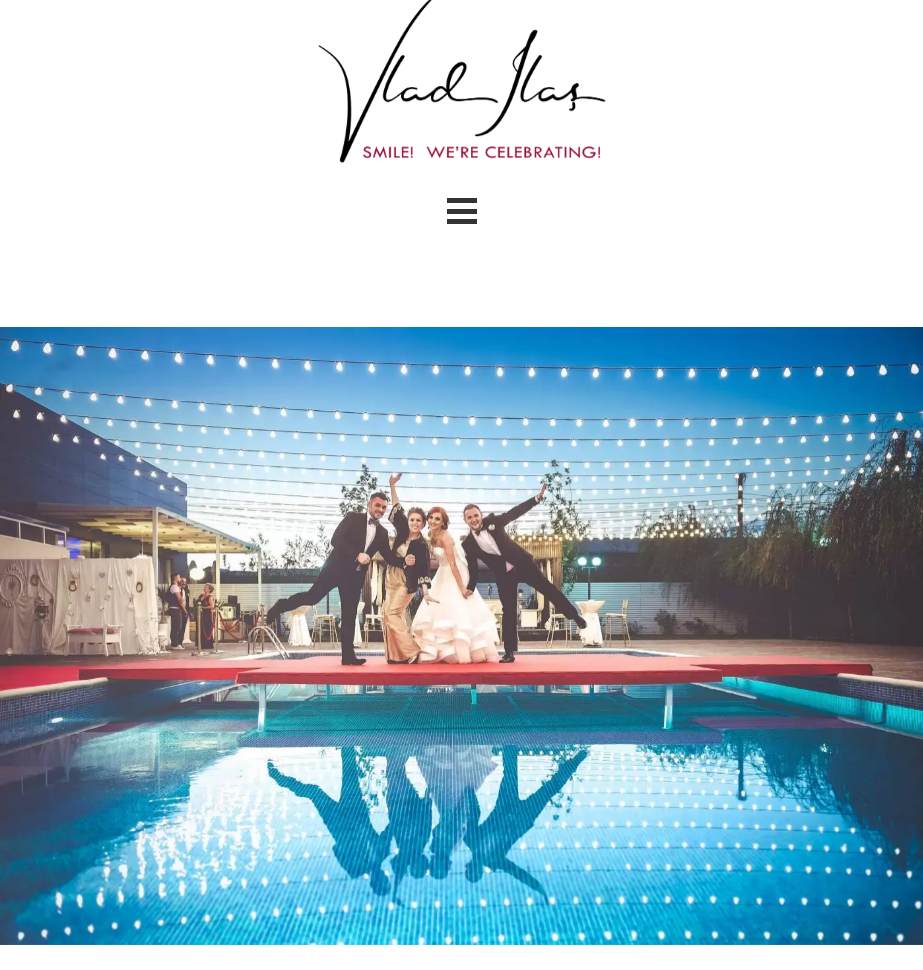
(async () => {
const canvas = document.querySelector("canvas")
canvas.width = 923
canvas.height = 970
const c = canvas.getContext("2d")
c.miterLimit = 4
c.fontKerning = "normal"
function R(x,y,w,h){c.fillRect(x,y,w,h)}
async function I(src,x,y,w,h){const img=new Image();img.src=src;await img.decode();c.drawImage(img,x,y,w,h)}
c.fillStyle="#fff"
R(0,0,923,970)
await I("1.png",318,0,288,164)
c.fillStyle="#333"
R(447,209,30,5)
R(447,198,30,5)
R(447,219,30,5)
await I("2.png",0,327,923,618)
})()
